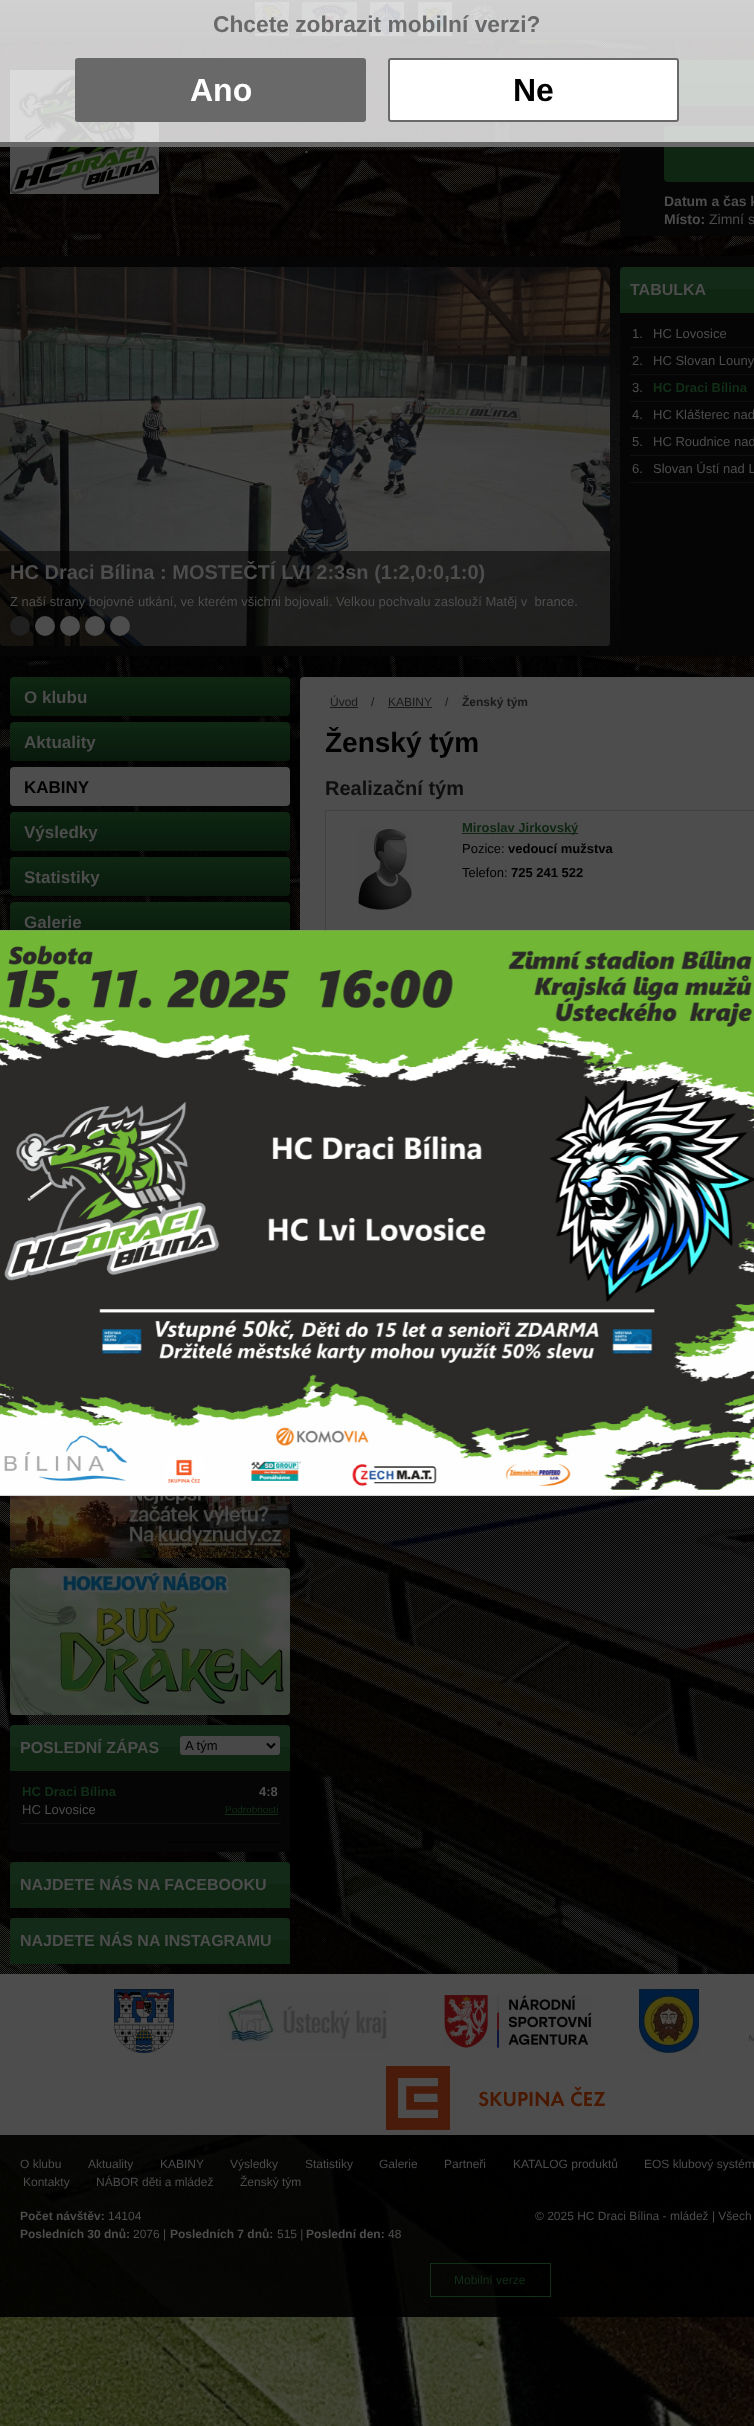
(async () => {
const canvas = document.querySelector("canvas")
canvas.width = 754
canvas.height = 2426
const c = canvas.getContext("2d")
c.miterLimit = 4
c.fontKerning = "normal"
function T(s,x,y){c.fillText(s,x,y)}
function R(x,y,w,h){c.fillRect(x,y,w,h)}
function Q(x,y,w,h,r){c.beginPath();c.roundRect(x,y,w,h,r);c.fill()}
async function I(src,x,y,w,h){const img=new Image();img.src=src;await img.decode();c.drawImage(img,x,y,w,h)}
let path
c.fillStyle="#fff"
R(0,0,754,2426)
await I("1.png",0,40,754,2386)
await I("2.png",0,0,754,40)
await I("3.png",255,2,34,34)
await I("4.png",302,2,55,34)
await I("5.png",370,2,34,34)
await I("6.png",418,2,34,34)
await I("7.png",469,3,29,32)
await I("8.png",0,40,754,1934)
await I("9.png",10,70,149,124)
c.fillStyle="#0e2612"
R(678,60,76,46)
c.fillStyle="#4d4d4d1a"
R(678,60,76,22)
c.fillStyle="#050505"
path = new Path2D("M620 106h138v126c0 2-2 4-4 4h-130c-2 0-4-2-4-4z")
c.fill(path)
c.fillStyle="#0e2612"
Q(664,126,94,56,4)
c.fillStyle="#4d4d4d1a"
R(664,126,90,14)
c.fillStyle="#ffffffcc"
R(0,0,754,142)
c.fillStyle="#696969"
R(0,142,754,5)
c.font="bold 22.75px Liberation Sans"
T("Chcete zobrazit mobilní verzi?",213,32)
c.beginPath()
c.roundRect(76,59,289,62,2)
c.fill()
c.strokeStyle="#696969"
c.lineWidth=2
c.stroke()
c.font="bold 32px Liberation Sans"
c.fillStyle="#fff"
T("Ano",190,101)
c.beginPath()
c.roundRect(389,59,289,62,2)
c.fill()
c.stroke()
c.fillStyle="#000"
T("Ne",513,101)
c.font="18px Liberation Sans"
c.fillStyle="#4d4d4d"
T(".",304,153)
c.font="bold 14px Liberation Sans"
T("Datum a čas k",664,206)
T("Místo:",664,224)
c.font="14px Liberation Sans"
T("Zimní s",709,224)
await I("10.png",0,256,754,400)
c.fillStyle="#0e2612"
path = new Path2D("M624 267h130c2 0 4 2 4 4v42h-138v-42c0-2 2-4 4-4z")
c.fill(path)
c.fillStyle="#4d4d4d1a"
R(620,267,134,22)
c.font="bold 16px Liberation Sans"
c.fillStyle="#4d4d4d"
T("TABULKA",630,295)
c.fillStyle="#050505"
path = new Path2D("M620 313h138v329c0 2-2 4-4 4h-130c-2 0-4-2-4-4z")
c.fill(path)
c.font="13px Liberation Sans"
c.fillStyle="#4d4d4d"
T("1.",632,338)
c.fillStyle="#0f0f0f"
R(630,347,124,1)
c.fillStyle="#4d4d4d"
T("HC Lovosice",653,338)
T("2.",632,365)
c.fillStyle="#0f0f0f"
R(630,374,124,1)
c.fillStyle="#4d4d4d"
T("HC Slovan Louny",653,365)
T("3.",632,392)
c.fillStyle="#0f0f0f"
R(630,401,124,1)
c.font="bold 13px Liberation Sans"
c.fillStyle="#112e17"
T("HC Draci Bílina",653,392)
c.font="13px Liberation Sans"
c.fillStyle="#4d4d4d"
T("4.",632,419)
c.fillStyle="#0f0f0f"
R(630,428,124,1)
c.fillStyle="#4d4d4d"
T("HC Klášterec nad",653,419)
T("5.",632,446)
c.fillStyle="#0f0f0f"
R(630,455,124,1)
c.fillStyle="#4d4d4d"
T("HC Roudnice nad",653,446)
T("6.",632,473)
c.fillStyle="#0f0f0f"
R(630,482,124,1)
c.fillStyle="#4d4d4d"
T("Slovan Ústí nad L",653,473)
await I("11.png",0,267,610,379)
c.fillStyle="#00000080"
c.beginPath()
c.roundRect(0,551,610,95,[0,0,4,4])
c.fill()
c.font="bold 20px Liberation Sans"
c.fillStyle="#4d4d4d"
T("HC Draci Bílina : MOSTEČTÍ LVI 2:3sn (1:2,0:0,1:0)",10,579)
c.font="13px Liberation Sans"
T("Z naší strany bojovné utkání, ve kterém všichni bojovali. Velkou pochvalu zaslouží Matěj v  brance.",10,606)
c.fillStyle="#202020"
c.beginPath()
c.arc(20,626,10,0,7)
c.fill()
c.fillStyle="#4d4d4d"
c.beginPath()
c.arc(45,626,10,0,7)
c.fill()
c.beginPath()
c.arc(70,626,10,0,7)
c.fill()
c.beginPath()
c.arc(95,626,10,0,7)
c.fill()
c.beginPath()
c.arc(120,626,10,0,7)
c.fill()
c.fillStyle="#0e2612"
Q(10,677,280,39,4)
await I("12.png",10,683,280,33)
c.font="bold 17px Liberation Sans"
c.fillStyle="#4d4d4d"
T("O klubu",24,703)
c.fillStyle="#0e2612"
Q(10,722,280,39,4)
await I("13.png",10,728,280,33)
c.fillStyle="#4d4d4d"
T("Aktuality",24,748)
await I("14.png",10,802,280,4)
Q(10,767,280,39,4)
c.fillStyle="#000"
T("KABINY",24,793)
c.fillStyle="#0e2612"
Q(10,812,280,39,4)
await I("15.png",10,818,280,33)
c.fillStyle="#4d4d4d"
T("Výsledky",24,838)
c.fillStyle="#0e2612"
Q(10,857,280,39,4)
await I("16.png",10,863,280,33)
c.fillStyle="#4d4d4d"
T("Statistiky",24,883)
c.fillStyle="#0e2612"
Q(10,902,280,39,4)
await I("17.png",10,908,280,22)
c.fillStyle="#4d4d4d"
T("Galerie",24,928)
await I("18.png",10,1496,280,62)
await I("19.png",10,1568,280,147)
c.fillStyle="#0e2612"
c.beginPath()
c.roundRect(10,1725,280,46,[4,4,0,0])
c.fill()
c.fillStyle="#4d4d4d1a"
R(10,1725,280,22)
c.font="bold 16px Liberation Sans"
c.fillStyle="#4d4d4d"
T("POSLEDNÍ ZÁPAS",20,1753)
c.fillStyle="#484848"
Q(180,1736,100,19,3)
path = new Path2D("M267 1743.5l4 4l4-4")
c.strokeStyle="#000"
c.stroke(path)
c.font="13px Liberation Sans"
c.fillStyle="#000"
T("A tým",185,1750)
c.fillStyle="#050505"
c.beginPath()
c.roundRect(10,1771,280,81,[0,0,4,4])
c.fill()
c.font="bold 13px Liberation Sans"
c.fillStyle="#112e17"
T("HC Draci Bílina",22,1796)
c.font="13px Liberation Sans"
c.fillStyle="#4d4d4d"
T("HC Lovosice",22,1814)
c.fillStyle="#0f0f0f"
R(20,1823,261,1)
c.font="bold 13px Liberation Sans"
c.fillStyle="#4d4d4d"
T("4:8",259,1796)
c.font="10px Liberation Sans"
c.fillStyle="#112e17"
T("Podrobnosti",225,1813)
R(225,1814,53,1)
c.fillStyle="#000"
R(167,1842,113,1)
c.fillStyle="#0e2612"
c.beginPath()
c.roundRect(10,1862,280,46,[4,4,0,0])
c.fill()
c.fillStyle="#4d4d4d1a"
R(10,1862,280,22)
c.font="bold 16px Liberation Sans"
c.fillStyle="#4d4d4d"
T("NAJDETE NÁS NA FACEBOOKU",20,1890)
c.fillStyle="#0e2612"
c.beginPath()
c.roundRect(10,1918,280,46,[4,4,0,0])
c.fill()
c.fillStyle="#4d4d4d1a"
R(10,1918,280,22)
c.fillStyle="#4d4d4d"
T("NAJDETE NÁS NA INSTAGRAMU",20,1946)
Q(300,677,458,587,4)
c.font="12px Liberation Sans"
c.fillStyle="#191919"
T("Úvod",330,706)
R(330,707,28,1)
T("/",371,706)
T("KABINY",388,706)
R(388,707,44,1)
T("/",445,706)
c.font="bold 12px Liberation Sans"
T("Ženský tým",462,706)
c.save()
c.beginPath()
c.rect(300,727,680,537)
c.clip()
c.font="bold 28px Liberation Sans"
c.fillStyle="#000"
T("Ženský tým",325,752)
c.restore()
c.font="bold 20px Liberation Sans"
c.fillStyle="#0f0f0f"
T("Realizační tým",325,795)
c.strokeStyle="#424242"
c.lineWidth=1
c.strokeRect(325.5,810.5,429,122)
await I("20.png",358,829,54,81)
c.fillStyle="#0e2612"
R(462,833,116,1)
c.font="bold 13px Liberation Sans"
T("Miroslav Jirkovský",462,832)
c.font="13px Liberation Sans"
c.fillStyle="#000"
T("Pozice:",462,853)
c.font="bold 13px Liberation Sans"
T("vedoucí mužstva",508,853)
c.font="13px Liberation Sans"
T("Telefon:",462,877)
c.font="bold 13px Liberation Sans"
T("725 241 522",511,877)
c.fillStyle="#4d4d4d"
R(0,1974,754,161)
await I("21.png",114,1989,60,64)
await I("22.png",218,1991,169,59)
await I("23.png",444,1995,148,53)
await I("24.png",639,1989,60,64)
await I("25.png",749,2035,5,6)
await I("26.png",386,2066,219,64)
c.fillStyle="#000000e6"
R(0,2135,754,182)
c.font="12px Liberation Sans"
c.fillStyle="#4d4d4d"
T("O klubu",20,2168)
T("Aktuality",88,2168)
T("KABINY",160,2168)
T("Výsledky",230,2168)
T("Statistiky",305,2168)
T("Galerie",379,2168)
T("Partneři",444,2168)
T("KATALOG produktů",513,2168)
T("EOS klubový systém",644,2168)
T("Kontakty",23,2186)
T("NÁBOR děti a mládež",96,2186)
T("Ženský tým",240,2186)
c.font="bold 12px Liberation Sans"
T("Počet návštěv:",20,2220)
c.font="12px Liberation Sans"
T("14104",108,2220)
c.font="bold 12px Liberation Sans"
T("Posledních 30 dnů:",20,2238)
c.font="12px Liberation Sans"
T("2076 |",133,2238)
c.font="bold 12px Liberation Sans"
T("Posledních 7 dnů:",170,2238)
c.font="12px Liberation Sans"
T("515 |",277,2238)
c.font="bold 12px Liberation Sans"
T("Poslední den:",306,2238)
c.font="12px Liberation Sans"
T("48",388,2238)
T("© 2025 HC Draci Bílina - mládež | Všech",535,2220)
c.strokeStyle="#112e17"
c.strokeRect(430.5,2263.5,120,33)
c.fillStyle="#112e17"
T("Mobilní verze",454,2284)
await I("27.png",0,930,754,566)
})()
